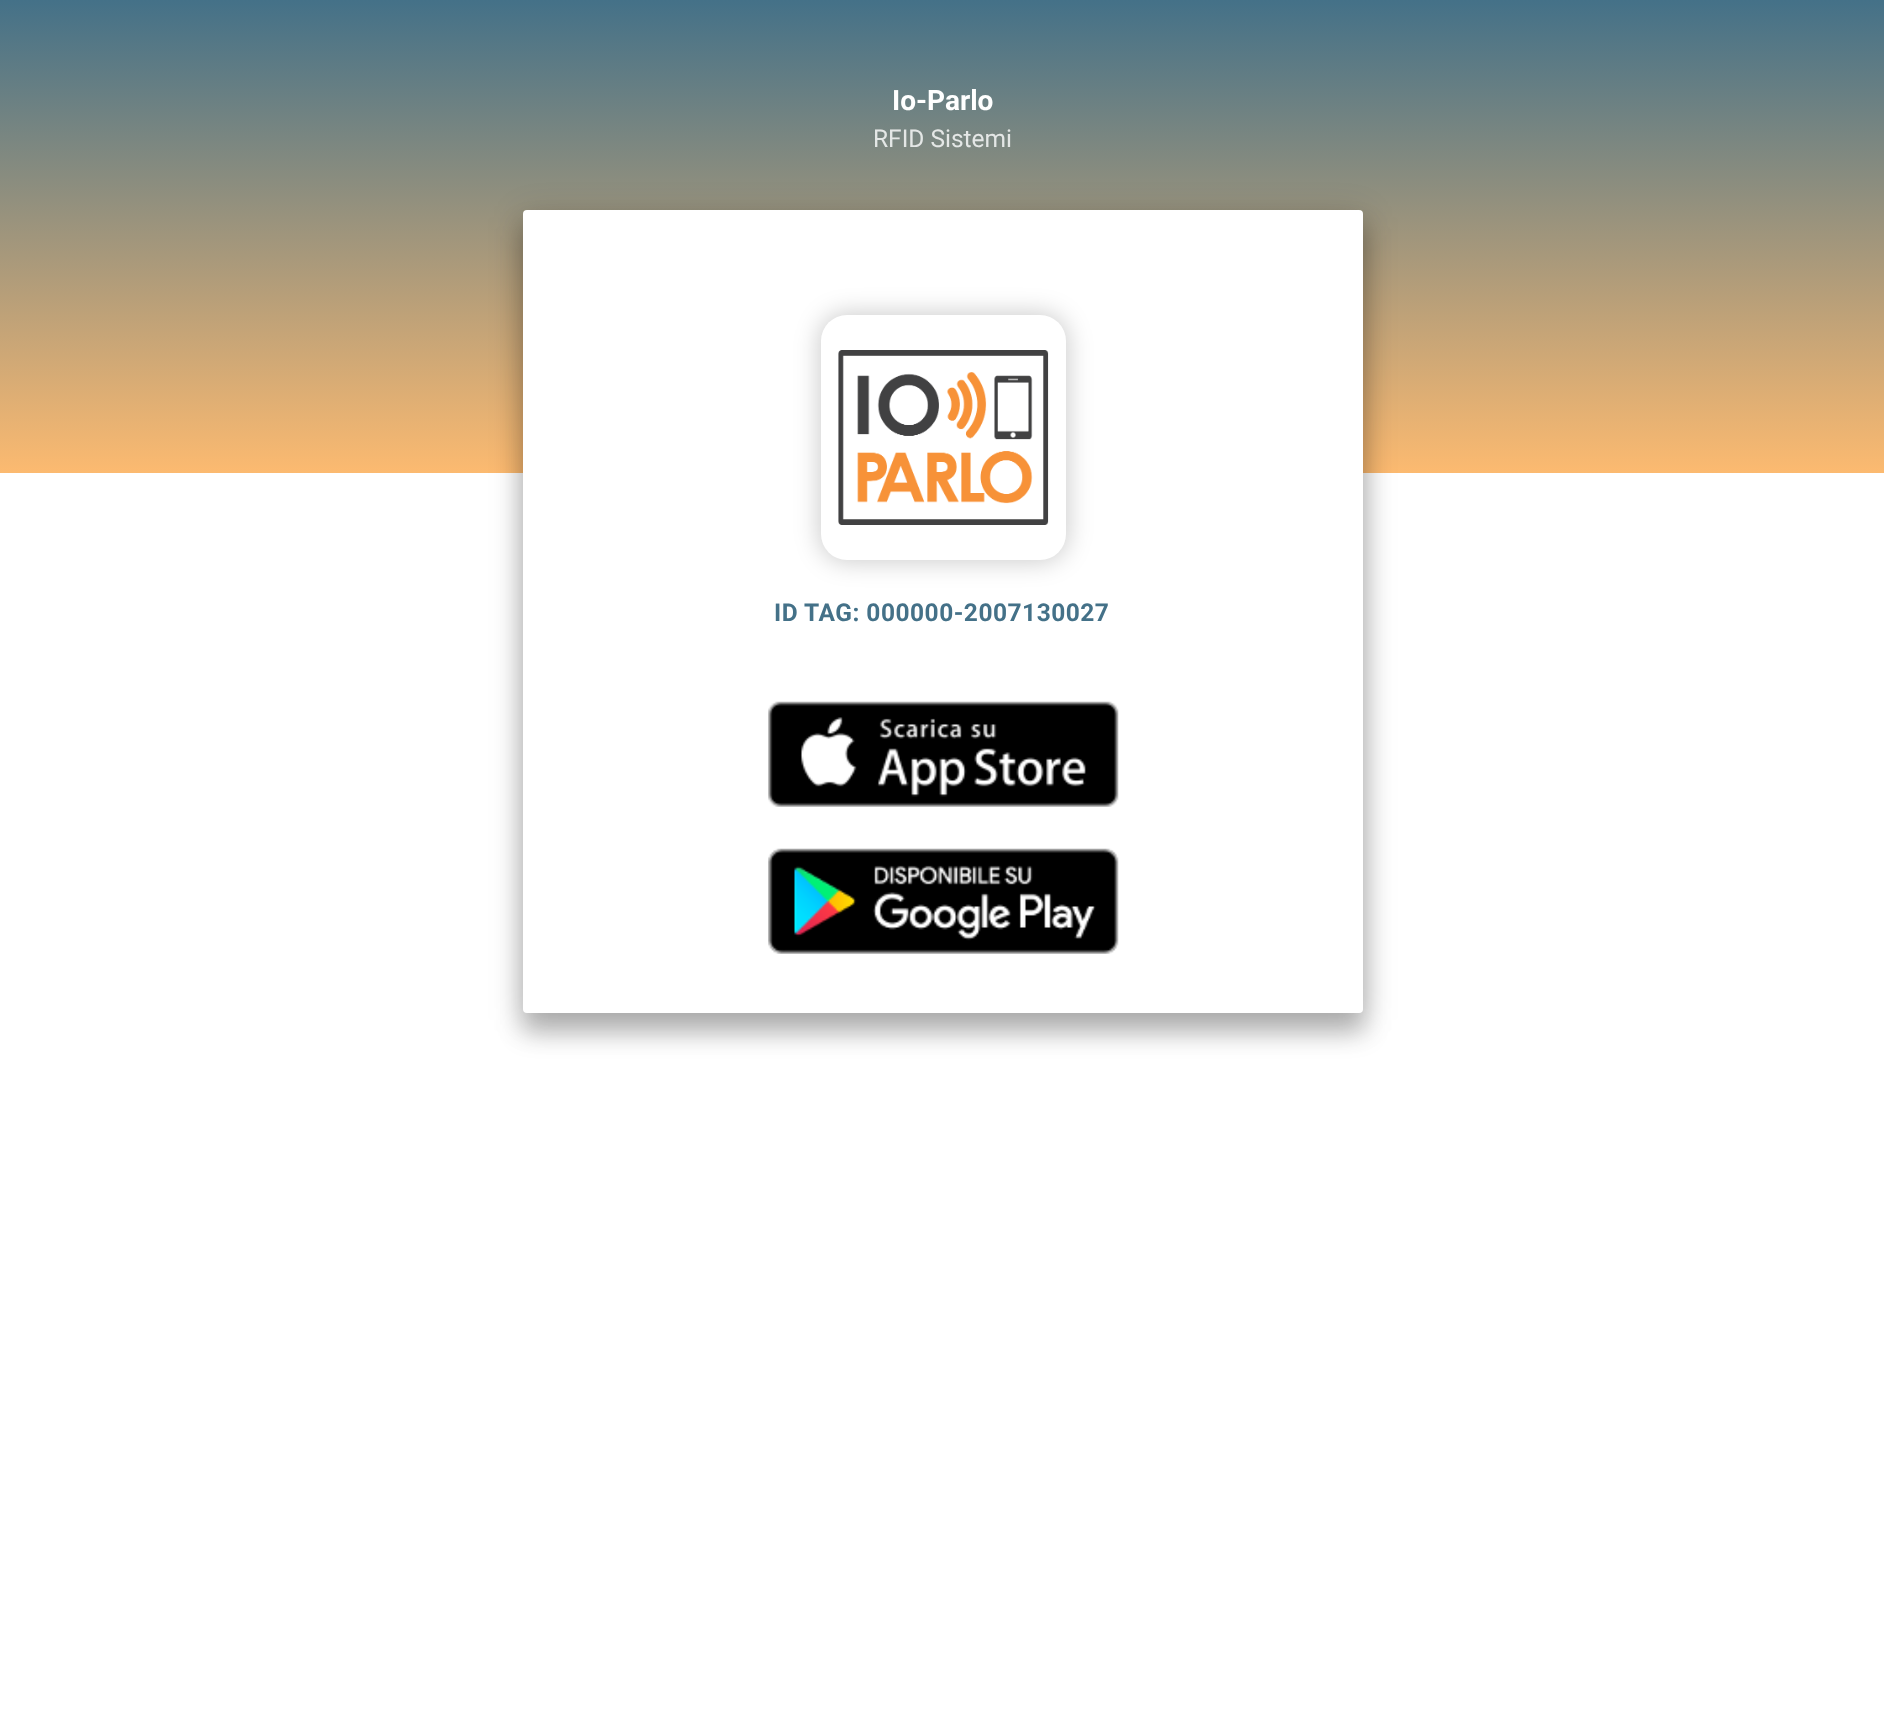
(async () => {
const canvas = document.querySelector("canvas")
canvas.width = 1884
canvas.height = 1720
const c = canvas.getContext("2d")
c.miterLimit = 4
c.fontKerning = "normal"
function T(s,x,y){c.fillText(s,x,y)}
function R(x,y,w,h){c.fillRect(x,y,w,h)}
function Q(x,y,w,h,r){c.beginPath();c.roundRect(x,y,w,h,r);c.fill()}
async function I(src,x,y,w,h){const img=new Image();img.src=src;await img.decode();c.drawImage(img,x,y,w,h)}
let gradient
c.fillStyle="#fff"
R(0,0,1884,1720)
gradient = c.createLinearGradient(942,0,942,473)
gradient.addColorStop(0,"#447188")
gradient.addColorStop(1,"#fcba70")
c.fillStyle = gradient
R(0,0,1884,473)
c.font="bold 28px Roboto"
c.fillStyle="#fff"
T("Io-Parlo",892,110)
c.font="24.5px Roboto"
c.fillStyle="#e4e7e6"
T("RFID Sistemi",873,147)
c.fillStyle="#00000029"
c.filter="blur(17px)"
c.beginPath()
c.roundRect(523,217,840,803,4)
c.fill()
c.filter="none"
c.fillStyle="#0000003d"
c.filter="blur(12.5px)"
c.beginPath()
c.roundRect(522,226,843,807,5)
c.fill()
c.filter="none"
c.fillStyle="#fff"
Q(523,210,840,803,4)
c.fillStyle="#00000033"
c.filter="blur(12px)"
c.beginPath()
c.roundRect(819,313,249,249,28)
c.fill()
c.filter="none"
c.fillStyle="#fff"
Q(821,315,245,245,26)
await I("1.png",838,350,211,175)
c.letterSpacing="0.5px"
c.font="bold 24.5px Roboto"
c.fillStyle="#447188"
T("ID TAG: 000000-2007130027",774,621)
await I("2.png",768,701,351,106)
await I("3.png",768,848,351,106)
})()
